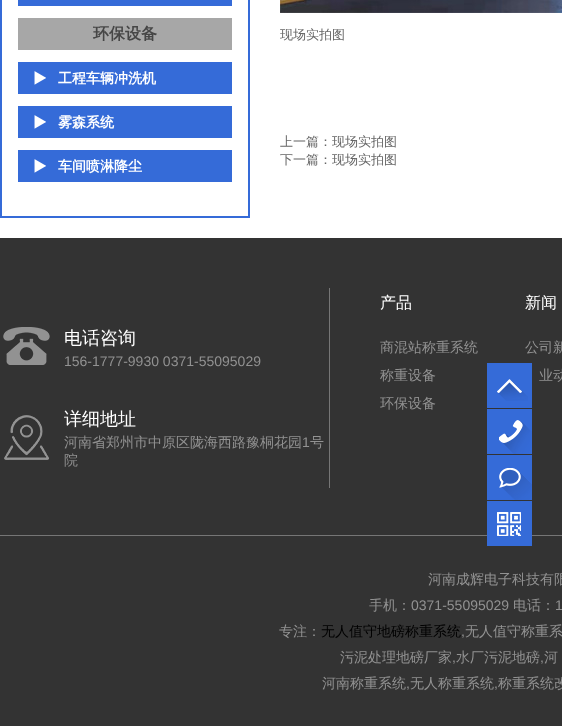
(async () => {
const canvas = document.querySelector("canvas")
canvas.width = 562
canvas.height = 726
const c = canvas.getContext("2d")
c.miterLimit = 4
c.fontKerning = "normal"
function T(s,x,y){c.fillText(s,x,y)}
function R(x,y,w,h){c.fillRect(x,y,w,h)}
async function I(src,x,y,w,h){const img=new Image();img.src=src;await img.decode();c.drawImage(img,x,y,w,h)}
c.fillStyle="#fff"
R(0,0,562,726)
c.strokeStyle="#356bd8"
c.lineWidth=2
c.strokeRect(1,-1,248,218)
c.fillStyle="#356bd8"
R(18,0,214,6)
c.fillStyle="#a7a7a7"
R(18,18,214,32)
c.font="bold 16px WenQuanYi Zen Hei"
c.fillStyle="#464646"
T("环保设备",93,39)
c.fillStyle="#356bd8"
R(18,62,214,32)
await I("1.png",34,71,12,14)
c.font="bold 14px WenQuanYi Zen Hei"
c.fillStyle="#fff"
T("工程车辆冲洗机",58,83)
c.fillStyle="#356bd8"
R(18,106,214,32)
await I("1.png",34,115,12,14)
c.fillStyle="#fff"
T("雾森系统",58,127)
c.fillStyle="#356bd8"
R(18,150,214,32)
await I("1.png",34,159,12,14)
c.fillStyle="#fff"
T("车间喷淋降尘",58,171)
await I("2.png",280,0,282,13)
c.font="500 13px WenQuanYi Zen Hei"
c.fillStyle="#666"
T("现场实拍图",280,39)
T("上一篇：现场实拍图",280,146)
T("下一篇：现场实拍图",280,164)
c.fillStyle="#333"
R(0,238,562,297)
await I("3.png",3,327,47,38)
c.font="500 18px WenQuanYi Zen Hei"
c.fillStyle="#fff"
T("电话咨询",64,344)
c.font="14px Liberation Sans"
c.fillStyle="#929292"
T("156-1777-9930 0371-55095029",64,366)
await I("4.png",4,415,45,45)
c.font="500 18px WenQuanYi Zen Hei"
c.fillStyle="#fff"
T("详细地址",64,425)
c.font="500 14px WenQuanYi Zen Hei"
c.fillStyle="#929292"
T("河南省郑州市中原区陇海西路豫桐花园",64,447)
c.font="14px Liberation Sans"
T("1",302,447)
c.font="500 14px WenQuanYi Zen Hei"
T("号",310,447)
T("院",64,465)
c.fillStyle="#767676"
R(329,288,1,200)
c.font="500 16px WenQuanYi Zen Hei"
c.fillStyle="#fff"
T("产品",380,308)
c.font="500 14px WenQuanYi Zen Hei"
c.fillStyle="#929292"
T("商混站称重系统",380,352)
T("称重设备",380,380)
T("环保设备",380,408)
c.font="500 16px WenQuanYi Zen Hei"
c.fillStyle="#fff"
T("新闻",525,308)
c.font="500 14px WenQuanYi Zen Hei"
c.fillStyle="#929292"
T("公司新",525,352)
T("业动",539,380)
c.fillStyle="#356bd8"
R(487,363,45,45)
await I("5.png",497,379,31,22)
R(487,409,45,45)
await I("6.png",499,420,33,34)
R(487,455,45,45)
await I("7.png",499,468,33,32)
c.fillStyle="#333"
R(0,536,562,190)
c.fillStyle="#767676"
R(0,535,562,1)
c.fillStyle="#356bd8"
R(487,501,45,45)
await I("8.png",497,501,24,35)
c.fillStyle="#929292"
T("河南成辉电子科技有限",428,584)
T("手机：",369,610)
c.font="14px Liberation Sans"
T("0371-55095029",411,610)
c.font="500 14px WenQuanYi Zen Hei"
T("电话：",513,610)
c.font="14px Liberation Sans"
T("1",555,610)
c.font="500 14px WenQuanYi Zen Hei"
T("专注：",279,636)
c.fillStyle="#000"
T("无人值守地磅称重系统",321,636)
c.font="14px Liberation Sans"
c.fillStyle="#929292"
T(",",461,636)
c.font="500 14px WenQuanYi Zen Hei"
T("无人值守称重系",465,636)
T("污泥处理地磅厂家",340,662)
c.font="14px Liberation Sans"
T(",",452,662)
c.font="500 14px WenQuanYi Zen Hei"
T("水厂污泥地磅",456,662)
c.font="14px Liberation Sans"
T(",",540,662)
c.font="500 14px WenQuanYi Zen Hei"
T("河",544,662)
T("河南称重系统",322,688)
c.font="14px Liberation Sans"
T(",",406,688)
c.font="500 14px WenQuanYi Zen Hei"
T("无人称重系统",410,688)
c.font="14px Liberation Sans"
T(",",494,688)
c.font="500 14px WenQuanYi Zen Hei"
T("称重系统改",498,688)
})()
